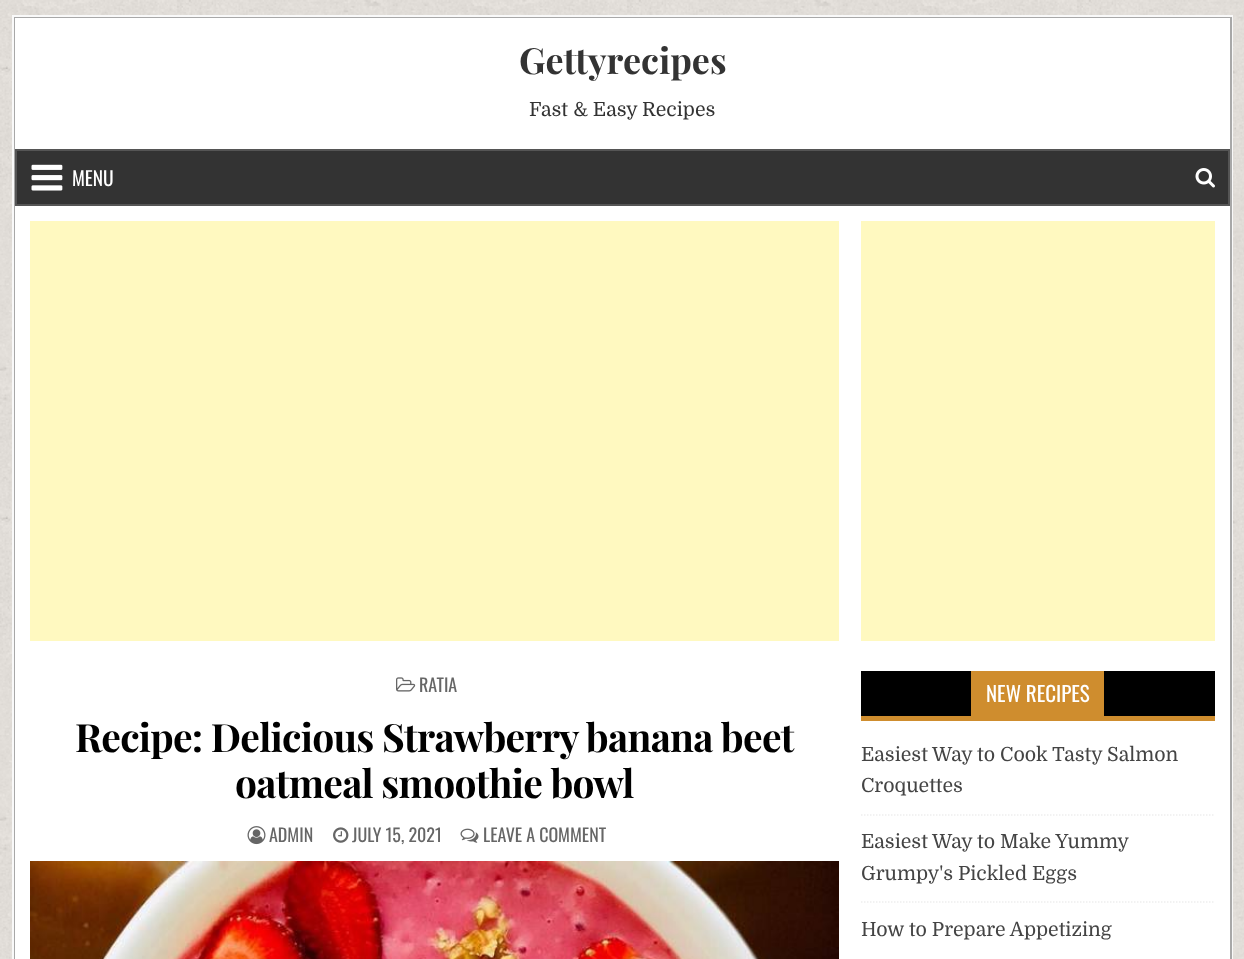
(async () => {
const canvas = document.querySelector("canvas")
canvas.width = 1244
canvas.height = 959
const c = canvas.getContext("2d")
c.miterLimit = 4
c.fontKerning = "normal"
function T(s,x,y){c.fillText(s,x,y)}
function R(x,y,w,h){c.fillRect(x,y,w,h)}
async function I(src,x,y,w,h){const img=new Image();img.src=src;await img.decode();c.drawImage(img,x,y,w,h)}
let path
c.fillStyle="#fff"
R(0,0,1244,959)
await I("1.png",0,0,1244,959)
c.strokeStyle="#f9f9f9"
c.lineWidth=2
c.strokeRect(13,16,1219,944)
c.strokeStyle="#a8a8a8"
c.strokeRect(15,18,1216,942)
R(15,18,1215,131)
c.font="bold 36px Playfair Display"
c.fillStyle="#333"
T("Gettyrecipes",519,74)
c.font="19.5px Domine"
T("Fast & Easy Recipes",529,116)
c.beginPath()
c.rect(16,150,1213,55)
c.fill()
c.strokeStyle="#555"
c.stroke()
await I("2.png",31,164,32,27)
c.font="19.5px Oswald"
c.fillStyle="#fff"
T("MENU",72,186)
await I("3.png",1195,168,20,20)
R(15,206,1215,753)
c.fillStyle="#fff9c0"
R(30,221,809,420)
await I("4.png",396,677,20,15)
c.font="18px Oswald"
c.fillStyle="#666"
T("RATIA",419,692)
c.letterSpacing="-0.75px"
c.font="bold 39px Playfair Display"
c.fillStyle="#000"
T("Recipe: Delicious Strawberry banana beet",75,752)
T("oatmeal smoothie bowl",235,798)
await I("5.png",247,826,19,19)
c.letterSpacing="0px"
c.font="18px Oswald"
c.fillStyle="#666"
T("ADMIN",269,842)
await I("6.png",333,827,16,16)
T("JULY 15, 2021",352,842)
await I("7.png",460,828,19,15)
T("LEAVE A COMMENT",483,842)
await I("8.png",30,861,809,98)
c.fillStyle="#fff9c0"
R(861,221,354,420)
c.fillStyle="#000"
R(861,671,354,45)
c.fillStyle="#cf8d2e"
R(861,716,354,5)
R(971,671,133,45)
c.font="21px Oswald"
c.fillStyle="#fff"
T("NEW RECIPES",986,702)
path = new Path2D("M861 815h354")
c.strokeStyle="#eee"
c.lineWidth=1.5
c.setLineDash([1.5,1.5])
c.stroke(path)
c.font="19.5px Domine"
c.fillStyle="#444"
T("Easiest Way to Cook Tasty Salmon",861,761)
T("Croquettes",861,792)
path = new Path2D("M861 902h354")
c.stroke(path)
T("Easiest Way to Make Yummy",861,848)
T("Grumpy's Pickled Eggs",861,880)
T("How to Prepare Appetizing",861,936)
})()
